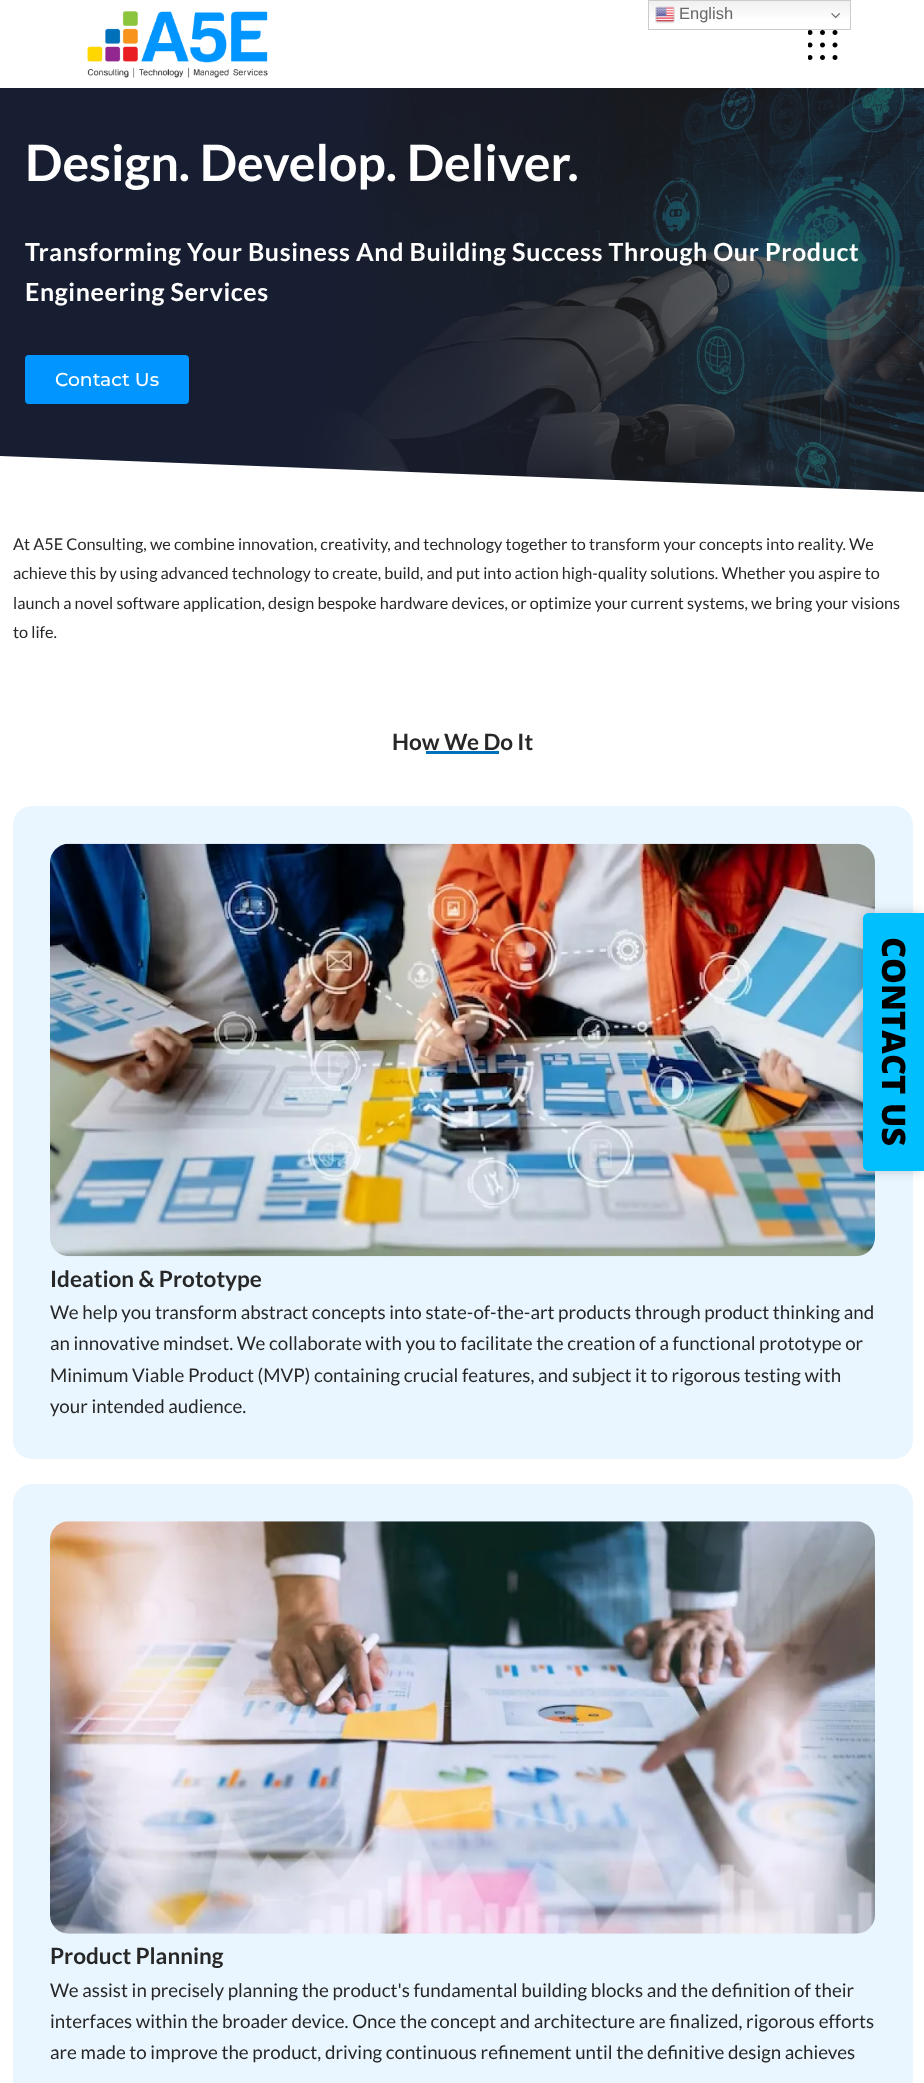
(async () => {
const canvas = document.querySelector("canvas")
canvas.width = 924
canvas.height = 2083
const c = canvas.getContext("2d")
c.miterLimit = 4
c.fontKerning = "normal"
function T(s,x,y){c.fillText(s,x,y)}
function R(x,y,w,h){c.fillRect(x,y,w,h)}
function Q(x,y,w,h,r){c.beginPath();c.roundRect(x,y,w,h,r);c.fill()}
async function I(src,x,y,w,h){const img=new Image();img.src=src;await img.decode();c.drawImage(img,x,y,w,h)}
let gradient, path
c.fillStyle="#fff"
R(0,0,924,2083)
gradient = c.createLinearGradient(749,0,749,30)
gradient.addColorStop(0,"#efefef")
gradient.addColorStop(.7,"#fff")
c.fillStyle = gradient
R(649,1,201,17)
c.strokeStyle="#ccc"
c.strokeRect(648.5,.5,202,29)
await I("1.png",655,6,20,18)
c.font="16.5px Liberation Sans"
c.fillStyle="#666"
T("English",679,19)
await I("2.png",831,13,9,6)
await I("3.png",87,11,181,67)
await I("4.png",808,30,30,30)
await I("5.png",0,88,924,404)
c.font="bold 50px Lato"
c.fillStyle="#fff"
T("Design. Develop. Deliver.",25,181)
c.letterSpacing="0.62px"
c.font="bold 25px Lato"
T("Transforming Your Business And Building Success Through Our Product",25,261)
T("Engineering Services",25,301)
c.fillStyle="#0195ff"
Q(25,355,164,49,4)
c.letterSpacing="0px"
c.font="500 18.75px Montserrat"
c.fillStyle="#fff"
T("Contact Us",55,386)
path = new Path2D("M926 492v2h-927v-38z")
c.fill(path)
c.font="16.25px Lato"
c.fillStyle="#272727"
T("At A5E Consulting, we combine innovation, creativity, and technology together to transform your concepts into reality. We",13,550)
T("achieve this by using advanced technology to create, build, and put into action high-quality solutions. Whether you aspire to",13,579)
T("launch a novel software application, design bespoke hardware devices, or optimize your current systems, we bring your visions",13,609)
T("to life.",13,638)
c.font="bold 22.5px Lato"
T("How We Do It",392,750)
c.fillStyle="#0070bb"
R(426,751,73,3)
c.fillStyle="#e9f6ff"
Q(13,806,900,653,19)
await I("6.png",50,843,825,414)
c.fillStyle="#272727"
T("Ideation & Prototype",50,1287)
c.font="18.75px Lato"
T("We help you transform abstract concepts into state-of-the-art products through product thinking and",50,1319)
T("an innovative mindset. We collaborate with you to facilitate the creation of a functional prototype or",50,1350)
T("Minimum Viable Product (MVP) containing crucial features, and subject it to rigorous testing with",50,1382)
T("your intended audience.",50,1413)
c.fillStyle="#e9f6ff"
Q(13,1484,900,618,19)
await I("7.png",50,1521,825,413)
c.font="bold 22.5px Lato"
c.fillStyle="#272727"
T("Product Planning",50,1964)
c.font="18.75px Lato"
T("We assist in precisely planning the product's fundamental building blocks and the definition of their",50,1997)
T("interfaces within the broader device. Once the concept and architecture are finalized, rigorous efforts",50,2028)
T("are made to improve the product, driving continuous refinement until the definitive design achieves",50,2059)
c.fillStyle="#13131333"
c.filter="blur(6px)"
c.beginPath()
c.roundRect(863,913,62,258,9)
c.fill()
c.filter="none"
c.fillStyle="#00bfff"
path = new Path2D("M869 913h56v258h-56c-3.5 0-6-2.5-6-6v-246c0-3.5 2.5-6 6-6z")
c.fill(path)
c.font="800 32.5px Open Sans"
c.fillStyle="#000"
c.save()
c.translate(882,937)
c.rotate(90 * Math.PI / 180)
c.fillText("CONTACT US",0,0)
c.restore()
})()
